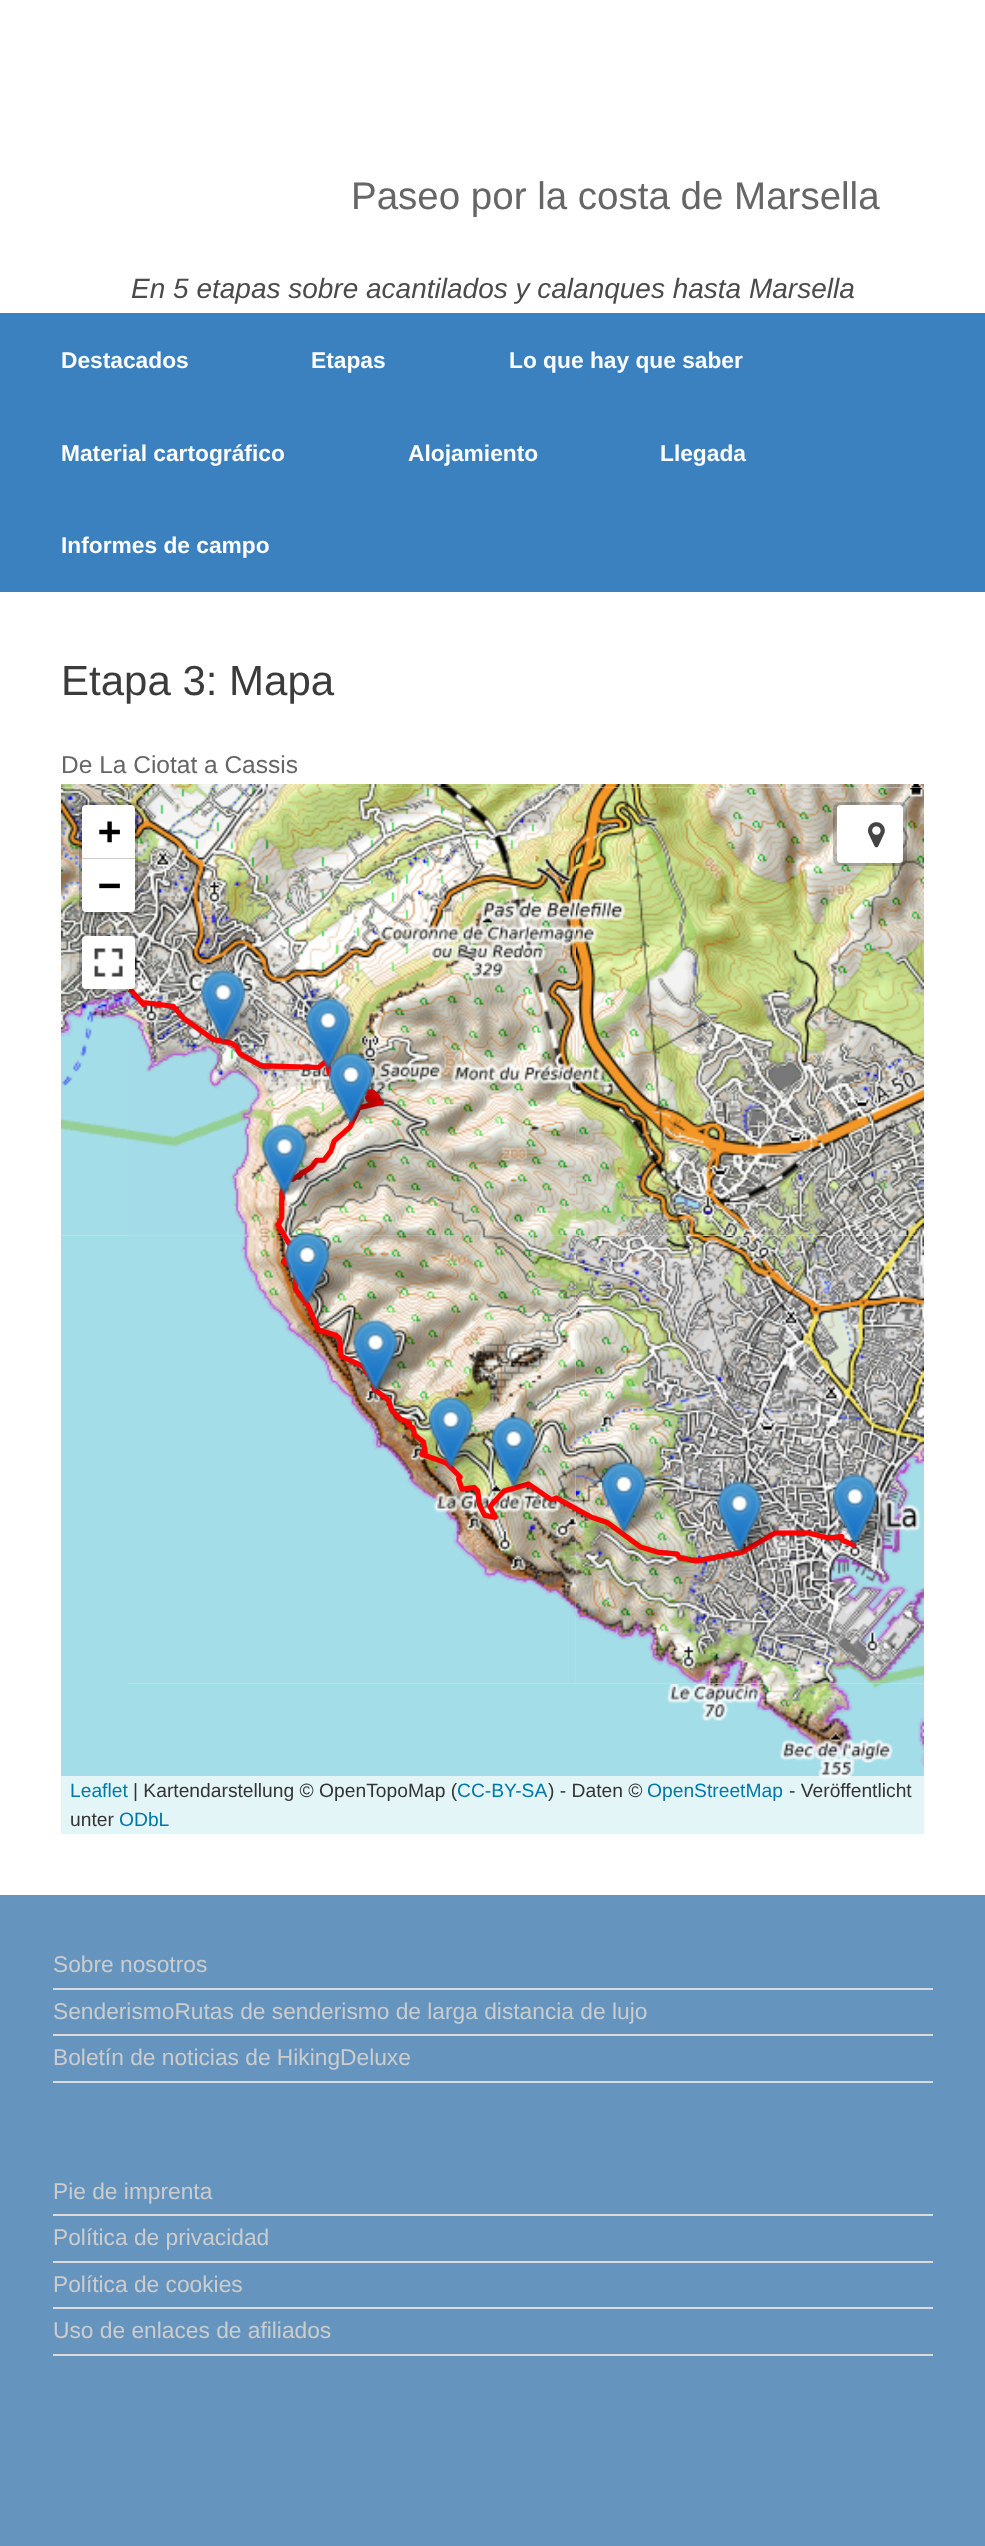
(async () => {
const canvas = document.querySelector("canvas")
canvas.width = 985
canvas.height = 2546
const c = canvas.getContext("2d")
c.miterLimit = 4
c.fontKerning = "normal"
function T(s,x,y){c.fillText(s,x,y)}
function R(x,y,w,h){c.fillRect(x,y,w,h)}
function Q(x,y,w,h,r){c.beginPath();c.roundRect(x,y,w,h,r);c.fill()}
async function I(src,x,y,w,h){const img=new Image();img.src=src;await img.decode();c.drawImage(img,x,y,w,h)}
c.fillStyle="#6595bf"
R(0,0,985,2546)
c.fillStyle="#fff"
R(0,0,985,313)
c.font="38.5px Liberation Sans"
c.fillStyle="#666"
T("Paseo por la costa de Marsella",351,209)
c.font="italic 28px Liberation Sans"
c.fillStyle="#4b4b4b"
T("En 5 etapas sobre acantilados y calanques hasta Marsella",131,298)
c.fillStyle="#3b81bf"
R(0,313,985,279)
c.font="bold 22.75px Liberation Sans"
c.fillStyle="#fcfcfc"
T("Destacados",61,368)
T("Etapas",311,368)
T("Lo que hay que saber",509,368)
T("Material cartográfico",61,461)
T("Alojamiento",408,461)
T("Llegada",660,461)
T("Informes de campo",61,553)
c.fillStyle="#fff"
R(0,592,985,1303)
c.font="42px Liberation Sans"
c.fillStyle="#3b3b3b"
T("Etapa 3: Mapa",61,695)
c.font="24.5px Liberation Sans"
c.fillStyle="#666"
T("De La Ciotat a Cassis",61,773)
c.fillStyle="#ddd"
R(61,787,863,897)
await I("5.png",127,787,449,449)
await I("1.png",61,784,67,4)
await I("2.png",128,784,448,4)
await I("3.png",576,784,348,4)
await I("7.png",127,1235,449,449)
await I("4.png",61,788,67,448)
await I("6.png",576,788,348,448)
c.fillStyle="#a3dde8"
R(61,1236,67,448)
await I("8.png",576,1236,348,448)
R(61,1684,515,150)
await I("9.png",576,1684,348,150)
await I("21.png",128,988,729,576)
await I("22.png",217,992,52,50)
await I("10.png",201,969,45,73)
await I("23.png",322,1020,52,50)
await I("11.png",306,997,45,73)
await I("24.png",345,1074,52,50)
await I("12.png",329,1051,44,73)
await I("25.png",278,1146,52,50)
await I("13.png",262,1123,45,73)
await I("26.png",301,1254,52,50)
await I("14.png",285,1232,45,72)
await I("27.png",369,1342,52,50)
await I("15.png",353,1319,45,73)
await I("28.png",444,1419,52,50)
await I("16.png",428,1396,45,73)
await I("29.png",507,1438,52,50)
await I("17.png",491,1415,45,73)
await I("30.png",618,1484,52,50)
await I("18.png",602,1461,44,73)
await I("31.png",733,1504,52,49)
await I("19.png",717,1480,45,73)
await I("32.png",849,1496,52,50)
await I("20.png",833,1473,44,73)
c.beginPath()
c.roundRect(81,804,55,109,5)
c.strokeStyle="#00000033"
c.lineWidth=4
c.stroke()
c.fillStyle="#fff"
c.beginPath()
c.roundRect(82,805,53,54,[4,4,0,0])
c.fill()
c.fillStyle="#ccc"
R(82,858,53,1)
c.font="bold 38.5px DejaVu Sans Mono"
c.fillStyle="#000"
T("+",98,844)
c.fillStyle="#fff"
c.beginPath()
c.roundRect(82,859,53,53,[0,0,4,4])
c.fill()
c.fillStyle="#000"
T("−",98,898)
c.beginPath()
c.roundRect(81,935,55,55,5)
c.stroke()
c.fillStyle="#fff"
Q(82,936,53,53,4)
await I("33.png",94,948,29,29)
c.beginPath()
c.roundRect(835,804,70,60,5)
c.stroke()
Q(837,805,66,58,4)
await I("34.png",868,822,17,26)
c.fillStyle="#ffffffb3"
R(61,1776,863,58)
c.font="19.25px Liberation Sans"
c.fillStyle="#0078a8"
T("Leaflet",70,1797)
c.fillStyle="#333"
T("| Kartendarstellung © OpenTopoMap (",133,1797)
c.fillStyle="#0078a8"
T("CC-BY-SA",457,1797)
c.fillStyle="#333"
T(") - Daten ©",548,1797)
c.fillStyle="#0078a8"
T("OpenStreetMap",647,1797)
c.fillStyle="#333"
T("- Veröffentlicht",789,1797)
T("unter",70,1826)
c.fillStyle="#0078a8"
T("ODbL",119,1826)
c.fillStyle="#dbdbdb"
R(53,1988,880,2)
c.font="22.75px Liberation Sans"
c.fillStyle="#ccc"
T("Sobre nosotros",53,1972)
c.fillStyle="#dbdbdb"
R(53,2034,880,2)
c.fillStyle="#ccc"
T("SenderismoRutas de senderismo de larga distancia de lujo",53,2019)
c.fillStyle="#dbdbdb"
R(53,2081,880,2)
c.fillStyle="#ccc"
T("Boletín de noticias de HikingDeluxe",53,2065)
c.fillStyle="#dbdbdb"
R(53,2214,880,2)
c.fillStyle="#ccc"
T("Pie de imprenta",53,2199)
c.fillStyle="#dbdbdb"
R(53,2261,880,2)
c.fillStyle="#ccc"
T("Política de privacidad",53,2245)
c.fillStyle="#dbdbdb"
R(53,2307,880,2)
c.fillStyle="#ccc"
T("Política de cookies",53,2292)
c.fillStyle="#dbdbdb"
R(53,2354,880,2)
c.fillStyle="#ccc"
T("Uso de enlaces de afiliados",53,2338)
})()
